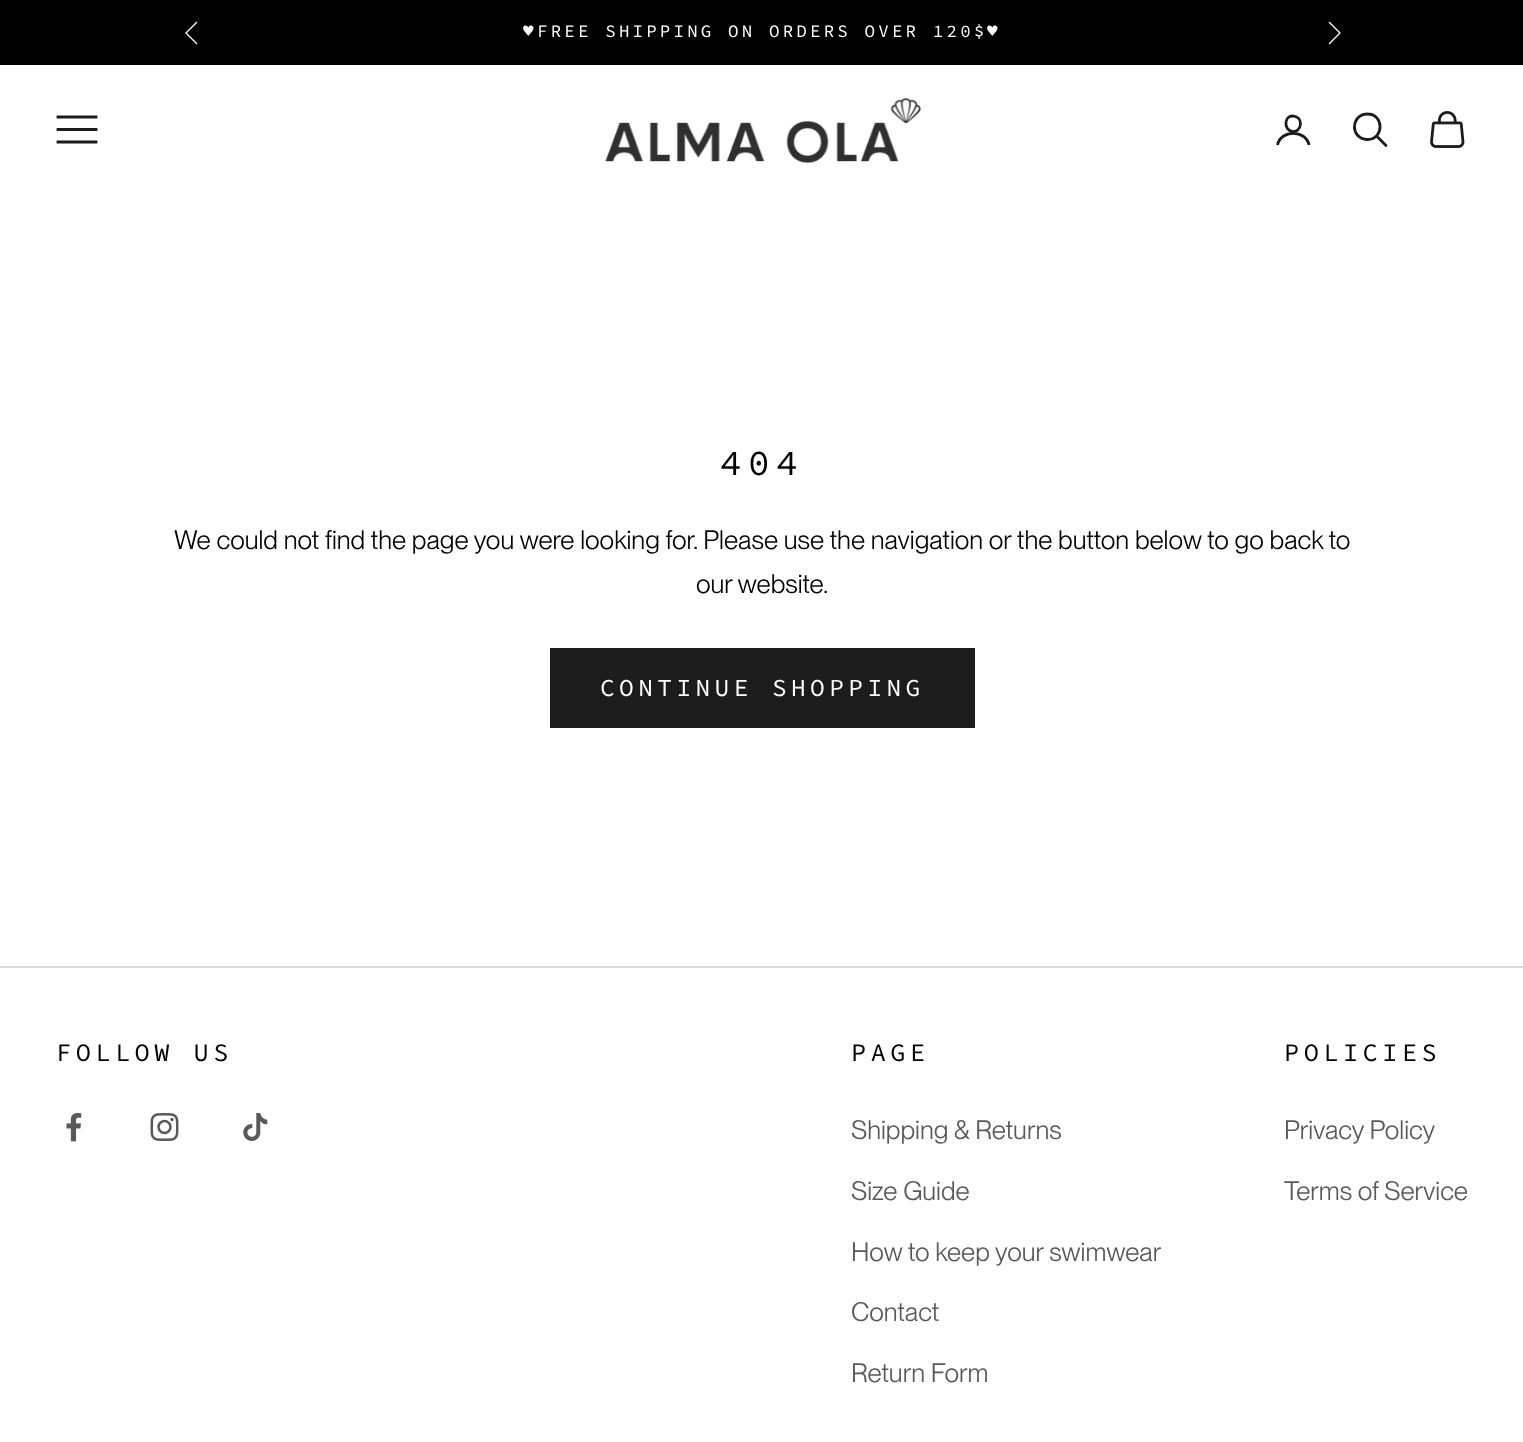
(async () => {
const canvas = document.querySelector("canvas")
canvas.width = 1523
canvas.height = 1442
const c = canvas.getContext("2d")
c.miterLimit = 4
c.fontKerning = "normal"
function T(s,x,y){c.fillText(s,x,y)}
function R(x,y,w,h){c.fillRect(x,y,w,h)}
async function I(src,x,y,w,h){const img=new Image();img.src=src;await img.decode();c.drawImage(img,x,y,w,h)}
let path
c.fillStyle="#fff"
R(0,0,1523,1442)
c.fillStyle="#000"
R(0,0,1523,65)
path = new Path2D("M196.5 22.5l-10.5 10.5l10.5 10.5")
c.strokeStyle="#fff"
c.lineWidth=1.3
c.lineCap="square"
c.stroke(path)
c.letterSpacing="3.15px"
c.font="17.5px DejaVu Sans Mono"
c.fillStyle="#fff"
T("♥",523,37)
c.font="17.5px Source Code Pro"
T("FREE SHIPPING ON ORDERS OVER 120$",537,37)
c.font="17.5px DejaVu Sans Mono"
T("♥",987,37)
path = new Path2D("M1329.5 43.5l10.5-10.5l-10.5-10.5")
c.stroke(path)
path = new Path2D("M58 142h38m-38-12.5h38m-38-12.5h38")
c.strokeStyle="#1c1c1c"
c.lineWidth=2.8
c.stroke(path)
await I("1.png",605,98,316,65)
path = new Path2D("M1300.5 124c-1 11.5-16 9-14.5-2c1-9 15-7.5 14.5 2z")
c.lineCap="round"
c.lineJoin="round"
c.stroke(path)
path = new Path2D("M1277.5 145c3-15.5 28.5-15.5 31.5 0")
c.lineCap="butt"
c.lineJoin="miter"
c.stroke(path)
path = new Path2D("M1367.5 114c-13.5-.5-18 17.5-6.5 24c2 1 4 1.5 6.5 1.5c17-.5 16.5-25.5 0-25.5z")
c.stroke(path)
path = new Path2D("M1377 136.5l9 9")
c.lineCap="round"
c.stroke(path)
await I("2.png",1430,111,35,37)
c.letterSpacing="6.5px"
c.font="36px Source Code Pro"
c.fillStyle="#000"
T("404",720,475)
c.letterSpacing="0px"
c.font="26.25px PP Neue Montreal"
T("We could not find the page you were looking for. Please use the navigation or the button below to go back to",174,549)
T("our website.",696,593)
c.fillStyle="#1c1c1c"
c.beginPath()
c.rect(551,649,423,78)
c.fill()
c.lineWidth=2
c.stroke()
c.letterSpacing="4.4px"
c.font="24.5px Source Code Pro"
c.fillStyle="#fff"
T("CONTINUE SHOPPING",600,696)
c.fillStyle="#d9d9d9"
R(0,966,1523,2)
c.letterSpacing="4.5px"
c.font="25.25px Source Code Pro"
c.fillStyle="#000"
T("FOLLOW US",56,1061)
await I("3.png",66,1113,16,29)
await I("4.png",150,1113,29,28)
await I("5.png",243,1113,25,28)
T("PAGE",851,1061)
c.letterSpacing="0px"
c.font="26.25px PP Neue Montreal"
c.fillStyle="#595959"
T("Shipping & Returns",851,1139)
T("Size Guide",851,1200)
T("How to keep your swimwear",851,1261)
T("Contact",851,1321)
T("Return Form",851,1382)
c.letterSpacing="4.5px"
c.font="25.25px Source Code Pro"
c.fillStyle="#000"
T("POLICIES",1284,1061)
c.letterSpacing="0px"
c.font="26.25px PP Neue Montreal"
c.fillStyle="#595959"
T("Privacy Policy",1284,1139)
T("Terms of Service",1284,1200)
})()
